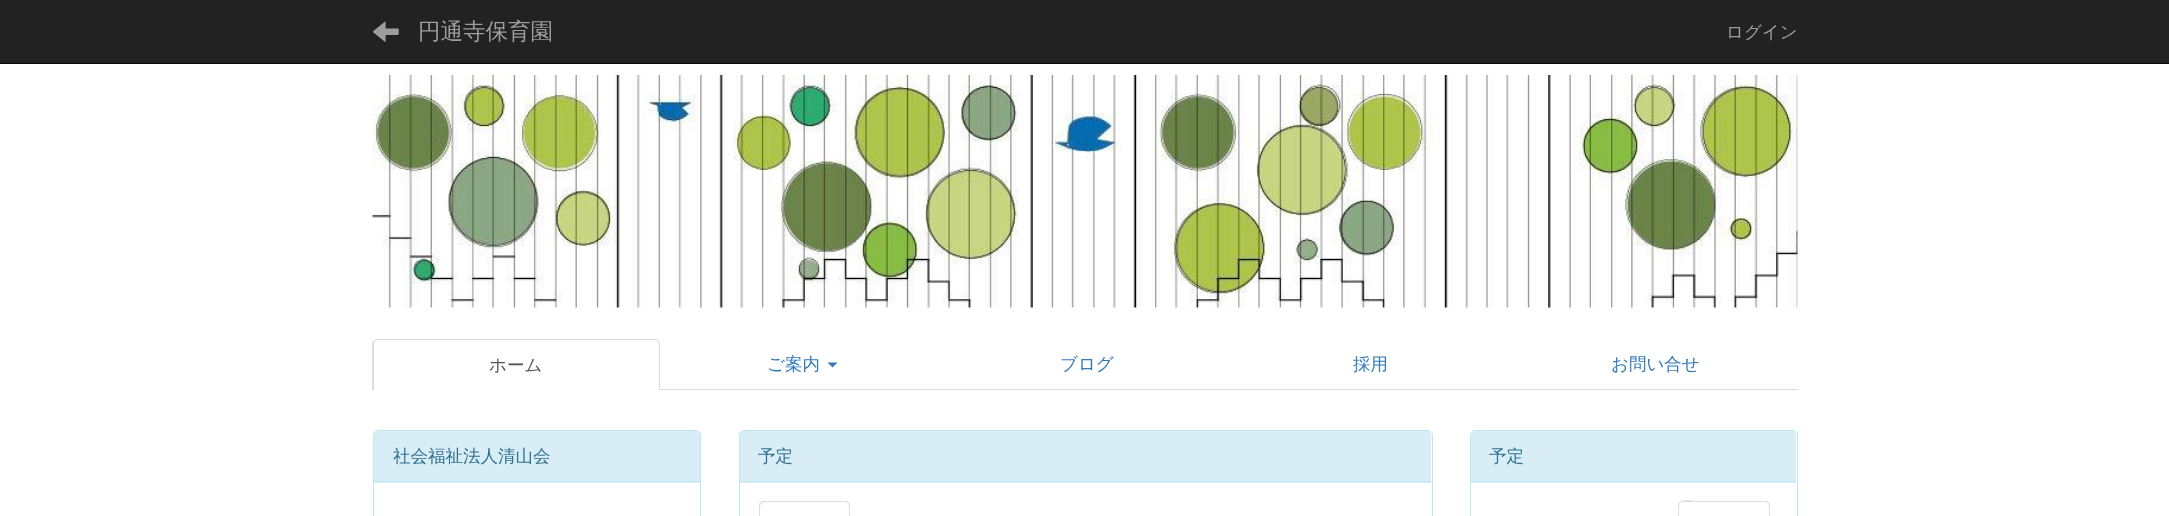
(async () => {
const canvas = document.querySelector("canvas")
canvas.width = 2169
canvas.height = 516
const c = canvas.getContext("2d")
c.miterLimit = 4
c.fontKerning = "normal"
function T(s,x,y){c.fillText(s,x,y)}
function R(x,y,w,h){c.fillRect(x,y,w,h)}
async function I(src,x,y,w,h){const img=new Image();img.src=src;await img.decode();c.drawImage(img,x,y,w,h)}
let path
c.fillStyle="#fff"
R(0,0,2169,516)
c.fillStyle="#222"
R(0,0,2169,63)
c.fillStyle="#080808"
R(0,63,2169,1)
await I("1.png",373,21,26,21)
c.font="500 22.5px WenQuanYi Zen Hei"
c.fillStyle="#9d9d9d"
T("円通寺保育園",418,39)
c.font="500 17.5px WenQuanYi Zen Hei"
T("ログイン",1726,38)
await I("2.png",372,75,1426,233)
c.fillStyle="#ddd"
path = new Path2D("M378 339h277c3 0 5 2 5 5v46h-288v-46c0-3 3-5 6-5zm0 1h277c2 0 4 2 4 4v46h-285v-46c0-2 1-4 4-4z")
c.fill(path,"evenodd")
c.fillStyle="#555"
T("ホーム",489,371)
c.fillStyle="#ddd"
R(660,389,1138,1)
c.fillStyle="#337ab7"
T("ご案内",767,370)
path = new Path2D("M827.5 362.5h10l-5 5z")
c.fill(path)
T("ブログ",1060,370)
T("採用",1353,370)
T("お問い合せ",1611,370)
c.beginPath()
c.roundRect(373.5,430.5,327,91,4.5)
c.strokeStyle="#bce8f1"
c.stroke()
c.fillStyle="#d9edf7"
c.beginPath()
c.roundRect(374,431,326,52,[4,4,0,0])
c.fill()
c.fillStyle="#bce8f1"
R(374,481,326,1)
c.fillStyle="#31708f"
T("社会福祉法人清山会",393,462)
c.beginPath()
c.roundRect(739.5,430.5,693,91,4.5)
c.stroke()
c.fillStyle="#d9edf7"
c.beginPath()
c.roundRect(740,431,691,52,[4,4,0,0])
c.fill()
c.fillStyle="#bce8f1"
R(740,481,691,1)
c.fillStyle="#31708f"
T("予定",758,462)
c.fillStyle="#ddd"
path = new Path2D("M764 502c-1 0-2 1-3 2l-1-1l2-2h85l2 2h-1l-3-1z")
c.fill(path)
path = new Path2D("M850 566v-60c0-1 0-3-1-3h-1l1 3v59z")
c.fill(path)
path = new Path2D("M759 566l1-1v-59l1-2l-1-1c-1 0-1 2-1 3z")
c.fill(path)
c.beginPath()
c.roundRect(1470.5,430.5,327,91,4.5)
c.stroke()
c.fillStyle="#d9edf7"
c.beginPath()
c.roundRect(1471,431,325,52,[4,4,0,0])
c.fill()
c.fillStyle="#bce8f1"
R(1471,481,325,1)
c.fillStyle="#31708f"
T("予定",1489,462)
c.fillStyle="#ddd"
path = new Path2D("M1682 502c-1 0-2 1-2 1h-1c3-5 15-2 16-2h72l2 2h-1l-3-1z")
c.fill(path)
path = new Path2D("M1770 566v-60c0-1 0-3-1-3h-1l1 3v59z")
c.fill(path)
path = new Path2D("M1678 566v-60c0-1 0-2 1-3h1l-1 3v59z")
c.fill(path)
})()
